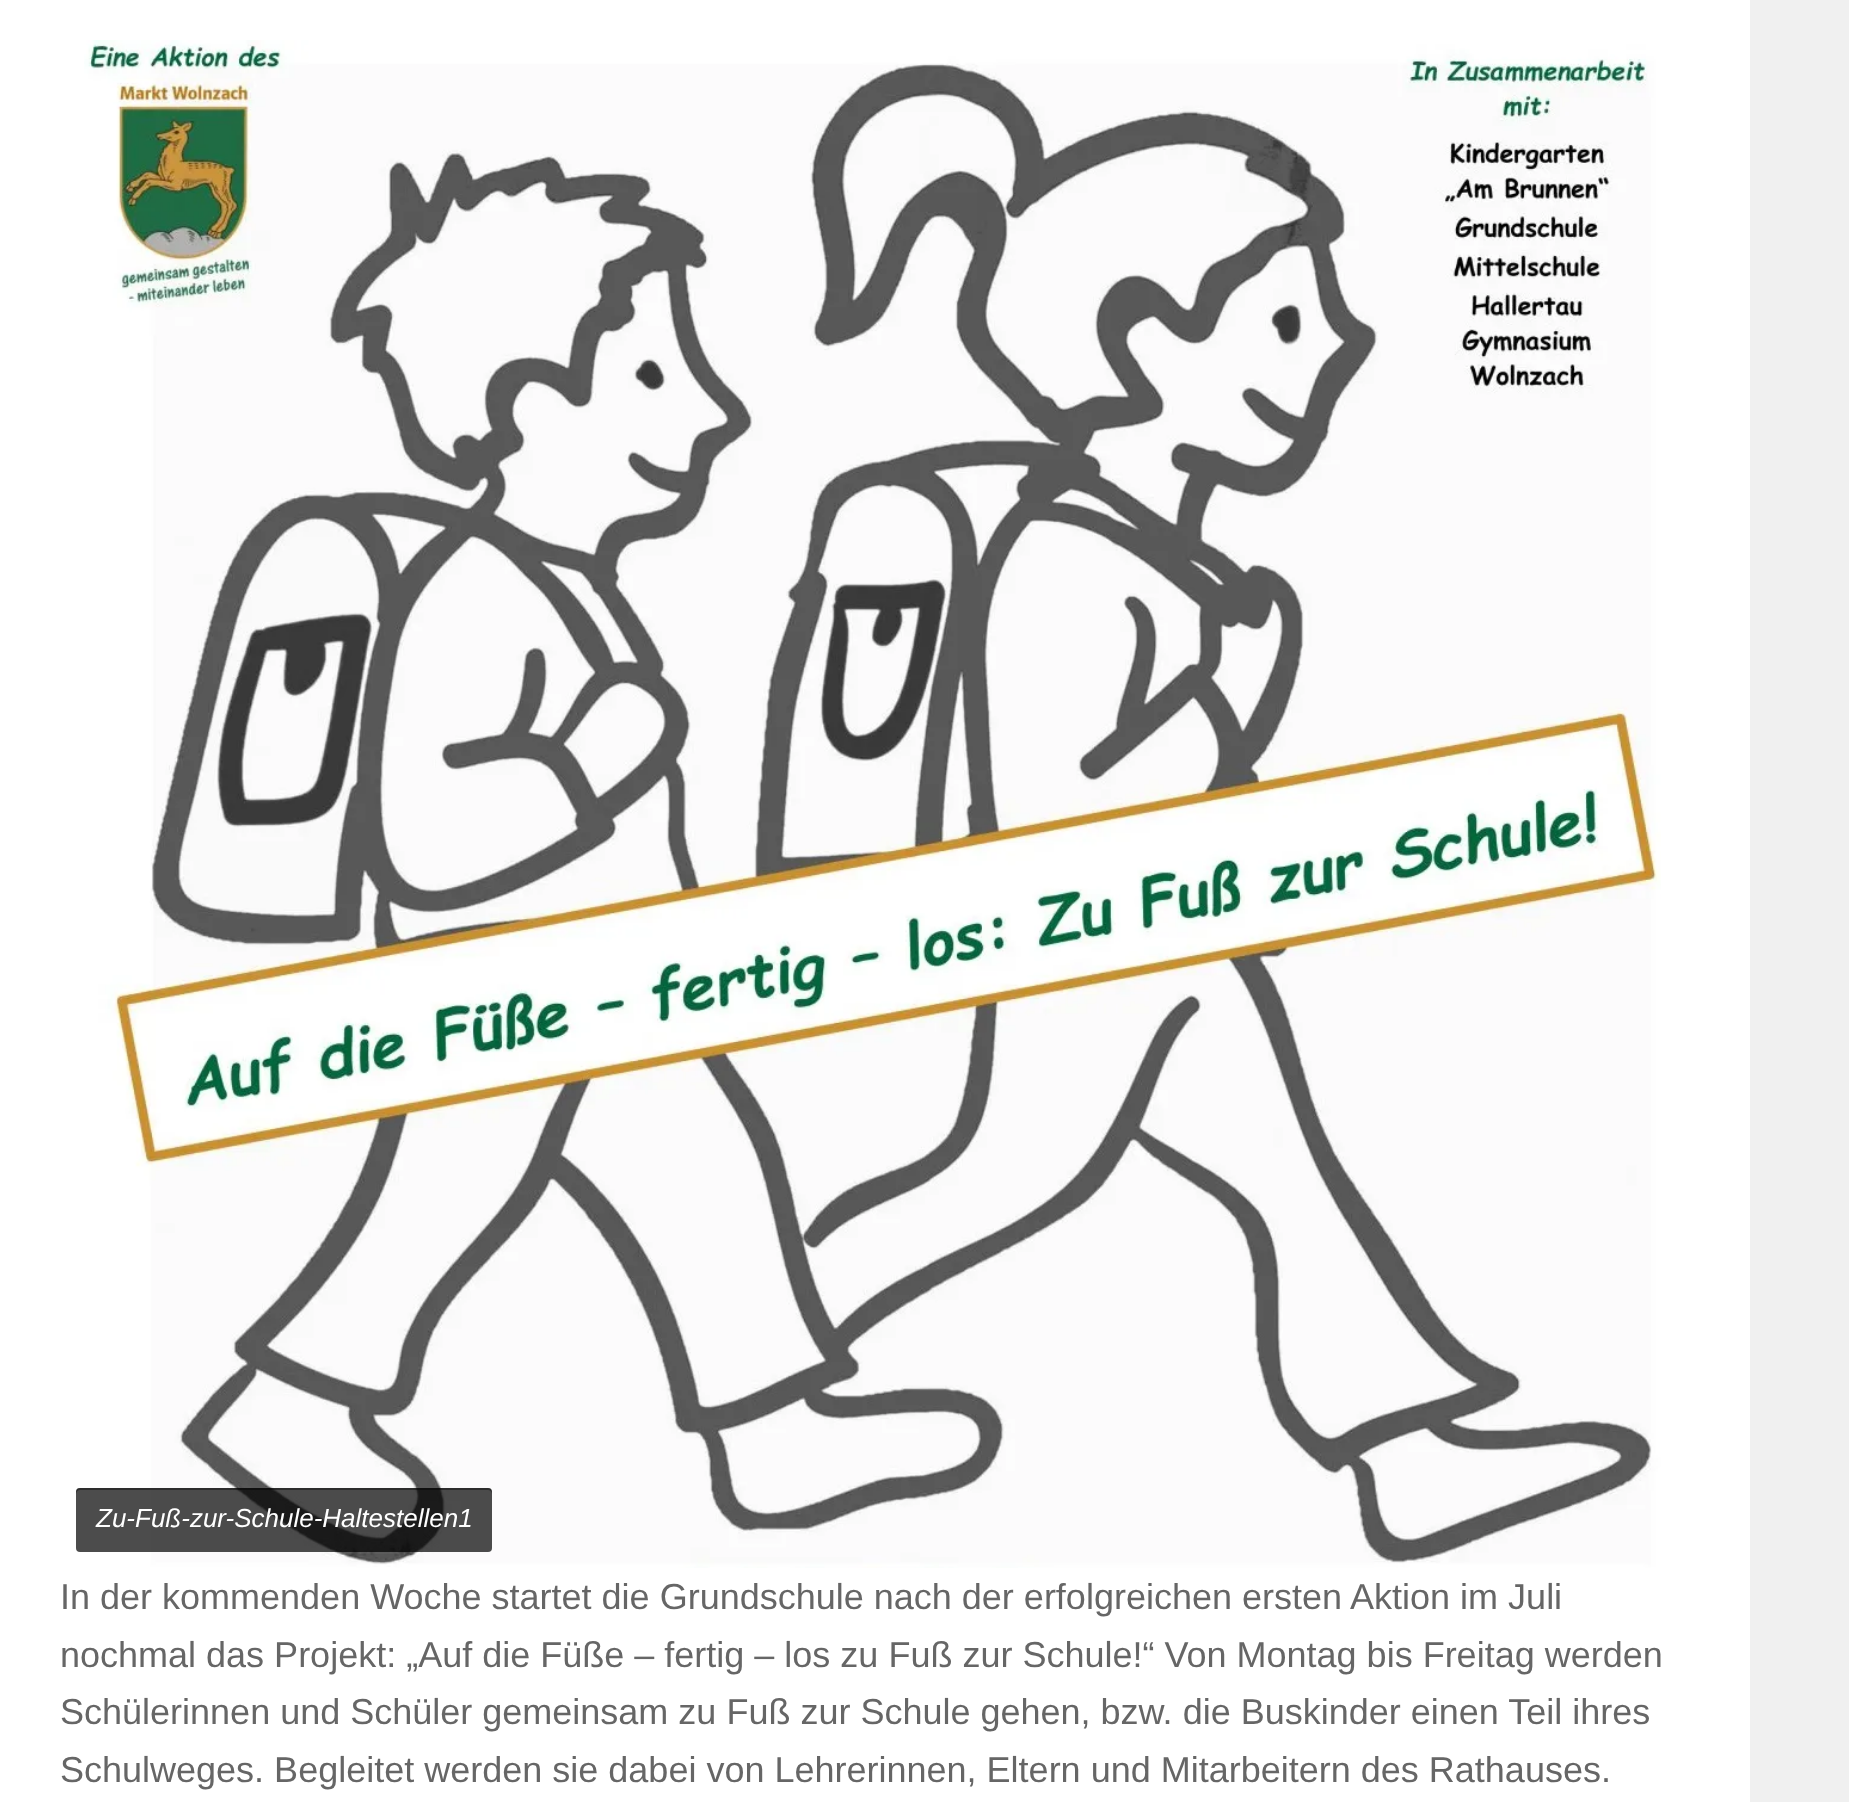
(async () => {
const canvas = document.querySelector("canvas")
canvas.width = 1849
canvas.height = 1802
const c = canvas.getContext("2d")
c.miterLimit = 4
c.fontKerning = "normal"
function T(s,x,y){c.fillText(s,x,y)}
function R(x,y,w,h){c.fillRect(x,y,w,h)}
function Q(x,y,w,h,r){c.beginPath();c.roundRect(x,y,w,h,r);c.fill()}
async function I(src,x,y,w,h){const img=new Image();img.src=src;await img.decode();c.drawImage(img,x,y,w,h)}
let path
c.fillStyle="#fff"
R(0,0,1849,1802)
await I("1.png",84,40,1577,1528)
c.fillStyle="#ffffff08"
path = new Path2D("M76 1548c0 3 0 6 4 6h408c4 0 4-3 4-6c0 2-2 4-4 4h-408c-2 0-4-2-4-4z")
c.fill(path)
c.fillStyle="#000000b3"
Q(76,1488,416,64,4)
c.fillStyle="#00000066"
path = new Path2D("M80 1490h408c2 0 4 2 4 4c0-3 0-6-4-6h-408c-4 0-4 3-4 6c0-2 2-4 4-4z")
c.fill(path)
c.font="italic 26px Liberation Sans"
c.fillStyle="#fff"
T("Zu-Fuß-zur-Schule-Haltestellen1",96,1527)
c.font="36px Liberation Sans"
c.fillStyle="#666"
T("In der kommenden Woche startet die Grundschule nach der erfolgreichen ersten Aktion im Juli",60,1609)
T("nochmal das Projekt: „Auf die Füße – fertig – los zu Fuß zur Schule!“ Von Montag bis Freitag werden",60,1667)
T("Schülerinnen und Schüler gemeinsam zu Fuß zur Schule gehen, bzw. die Buskinder einen Teil ihres",60,1724)
T("Schulweges. Begleitet werden sie dabei von Lehrerinnen, Eltern und Mitarbeitern des Rathauses.",60,1782)
c.fillStyle="#f0f0f0"
R(1750,0,99,1802)
})()
